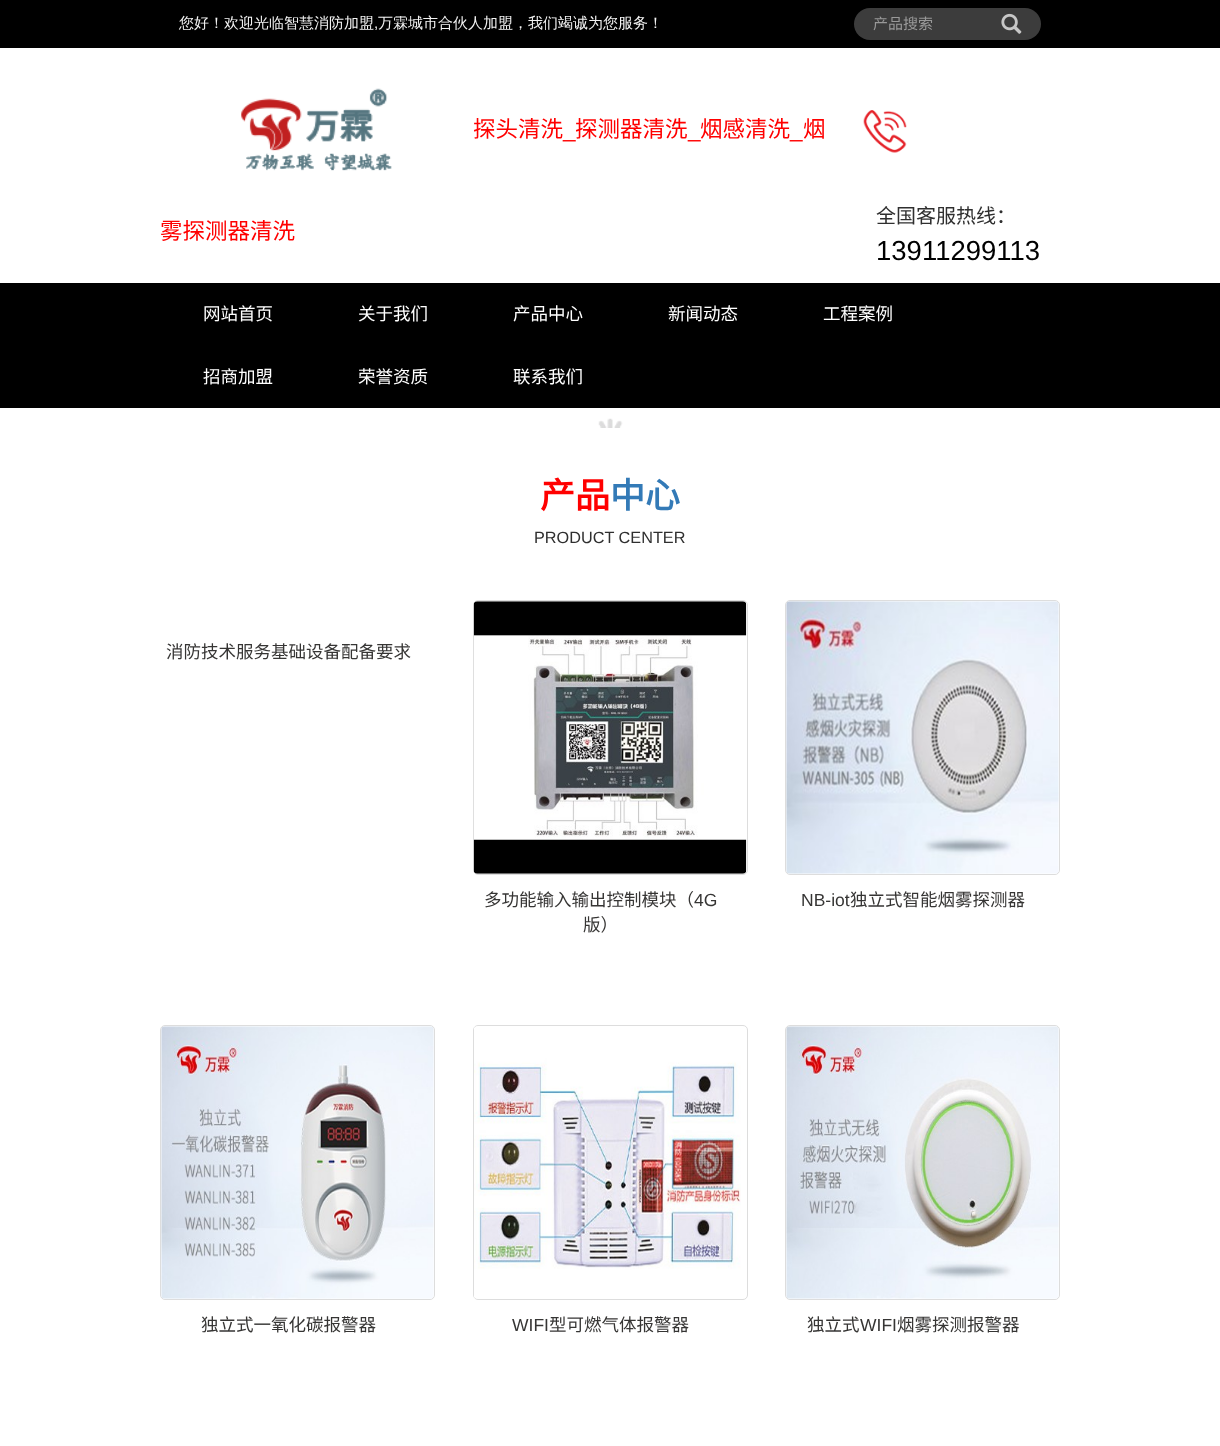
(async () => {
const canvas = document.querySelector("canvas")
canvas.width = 1220
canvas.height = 1446
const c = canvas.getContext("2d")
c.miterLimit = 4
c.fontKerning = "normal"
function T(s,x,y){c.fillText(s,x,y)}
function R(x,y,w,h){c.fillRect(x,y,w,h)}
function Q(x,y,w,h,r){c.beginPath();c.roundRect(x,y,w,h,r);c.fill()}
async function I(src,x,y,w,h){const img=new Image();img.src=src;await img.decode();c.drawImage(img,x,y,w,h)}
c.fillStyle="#fff"
R(0,0,1220,1446)
c.fillStyle="#000"
R(0,0,1220,48)
c.font="500 15px WenQuanYi Zen Hei"
c.fillStyle="#f3f3f3"
T("您好！欢迎光临智慧消防加盟",179,28)
c.font="15px Liberation Sans"
T(",",374,28)
c.font="500 15px WenQuanYi Zen Hei"
T("万霖城市合伙人加盟，我们竭诚为您服务！",378,28)
c.fillStyle="#3c3c3c"
Q(854,8,187,32,16)
c.font="15px Noto Sans CJK SC"
c.fillStyle="#999"
T("产品搜索",873,29)
await I("1.png",1001,13,21,21)
await I("2.png",241,88,151,83)
c.font="22.5px Noto Sans CJK SC"
c.fillStyle="#f00"
T("探头清洗",473,137)
T("探测器清洗",575,137)
T("烟感清洗",700,137)
T("烟",803,137)
c.font="22.5px Liberation Sans"
T("_",563,137)
T("_",688,137)
T("_",790,137)
c.font="22.5px Noto Sans CJK SC"
T("雾探测器清洗",160,239)
await I("3.png",863,110,44,43)
c.font="20px Noto Sans CJK SC"
c.fillStyle="#2f2f2f"
T("全国客服热线：",876,223)
c.font="27.5px Liberation Sans"
c.fillStyle="#000"
T("13911299113",876,260)
R(0,283,1220,125)
c.font="17.5px Noto Sans CJK SC"
c.fillStyle="#fff"
T("网站首页",203,320)
T("关于我们",358,320)
T("产品中心",513,320)
T("新闻动态",668,320)
T("工程案例",823,320)
T("招商加盟",203,383)
T("荣誉资质",358,383)
T("联系我们",513,383)
await I("4.png",598,418,25,10)
c.font="bold 35px Noto Sans CJK SC"
c.fillStyle="#f00"
T("产品",540,508)
c.fillStyle="#337ab7"
T("中心",610,508)
c.font="16.25px Liberation Sans"
c.fillStyle="#2f2f2f"
T("PRODUCT CENTER",534,543)
c.font="17.5px Noto Sans CJK SC"
c.fillStyle="#363534"
T("消防技术服务基础设备配备要求",166,658)
c.beginPath()
c.roundRect(473.5,600.5,274,274,4.5)
c.strokeStyle="#ddd"
c.stroke()
await I("5.png",473,601,274,273)
T("多功能输入输出控制模块（",484,906)
c.font="17.5px Liberation Sans"
T("4G",694,906)
c.font="17.5px Noto Sans CJK SC"
T("版）",583,931)
c.beginPath()
c.roundRect(785.5,600.5,274,274,4.5)
c.stroke()
await I("6.png",786,601,273,273)
c.font="17.5px Liberation Sans"
T("NB-iot",801,906)
c.font="17.5px Noto Sans CJK SC"
T("独立式智能烟雾探测器",850,906)
c.beginPath()
c.roundRect(160.5,1025.5,274,274,4.5)
c.stroke()
await I("7.png",161,1026,273,273)
T("独立式一氧化碳报警器",201,1331)
c.beginPath()
c.roundRect(473.5,1025.5,274,274,4.5)
c.stroke()
await I("8.png",474,1026,267,273)
c.font="17.5px Liberation Sans"
T("WIFI",512,1331)
c.font="17.5px Noto Sans CJK SC"
T("型可燃气体报警器",549,1331)
c.beginPath()
c.roundRect(785.5,1025.5,274,274,4.5)
c.stroke()
await I("9.png",786,1026,273,273)
T("独立式",807,1331)
c.font="17.5px Liberation Sans"
T("WIFI",860,1331)
c.font="17.5px Noto Sans CJK SC"
T("烟雾探测报警器",897,1331)
})()
